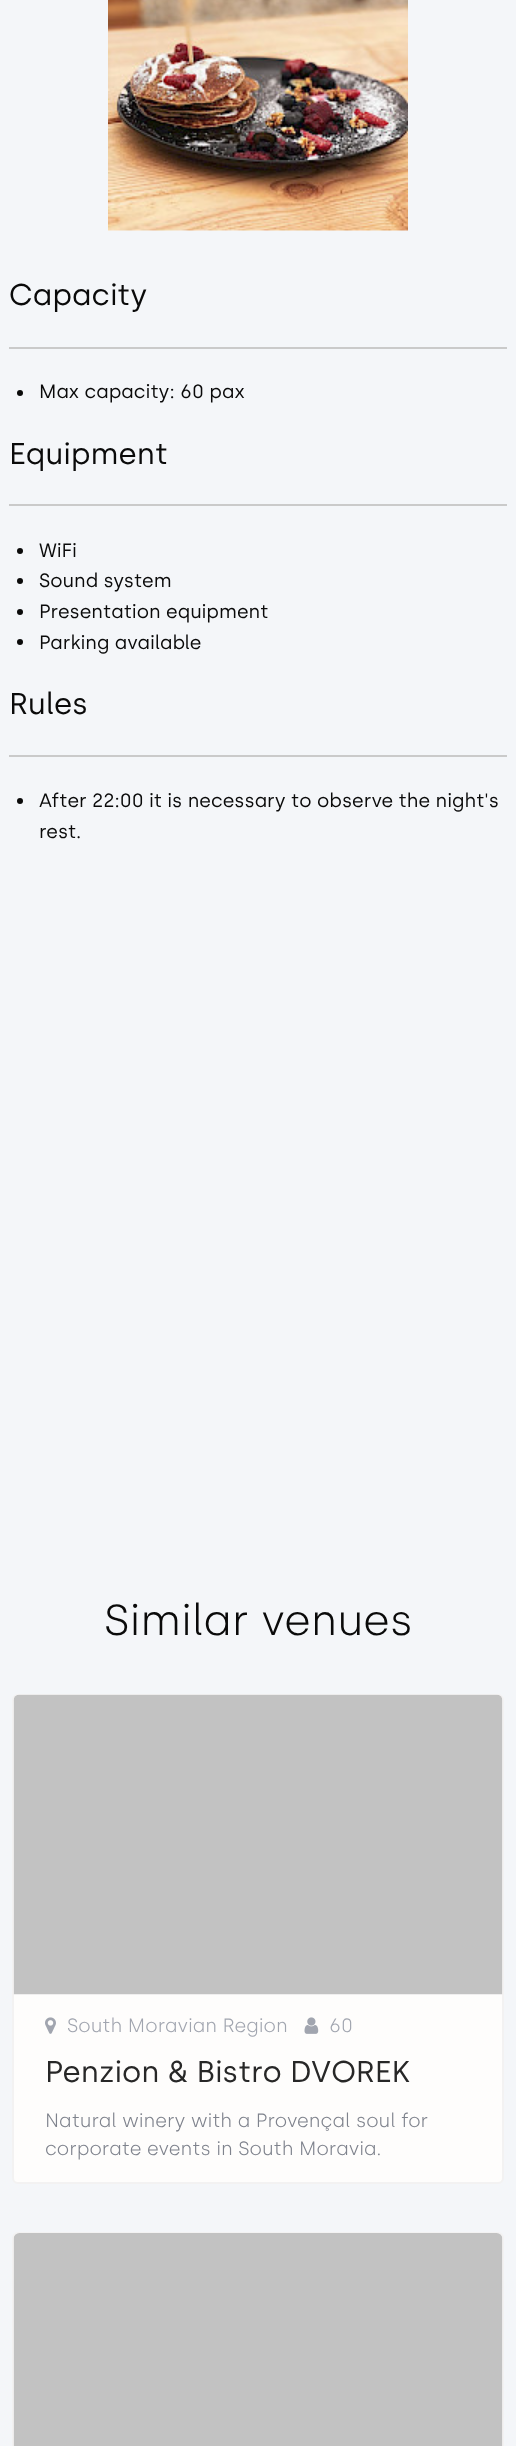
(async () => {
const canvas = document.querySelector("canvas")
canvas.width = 516
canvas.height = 2446
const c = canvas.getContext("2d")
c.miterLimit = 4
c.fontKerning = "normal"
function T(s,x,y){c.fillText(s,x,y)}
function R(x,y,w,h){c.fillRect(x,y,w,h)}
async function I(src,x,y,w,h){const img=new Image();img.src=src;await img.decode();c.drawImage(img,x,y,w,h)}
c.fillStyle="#f4f6f9"
R(0,0,516,2446)
await I("1.png",108,0,300,231)
c.font="30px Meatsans"
c.fillStyle="#0a0a0a"
T("Capacity",9,305)
c.fillStyle="#cacaca"
R(9,347,498,2)
c.fillStyle="#0a0a0a"
c.beginPath()
c.arc(20,393,3,0,7)
c.fill()
c.font="19.2px Meatsans"
T("Max capacity: 60 pax",39,398)
c.font="30px Meatsans"
T("Equipment",9,464)
c.fillStyle="#cacaca"
R(9,504,498,2)
c.fillStyle="#0a0a0a"
c.beginPath()
c.arc(20,551,3,0,7)
c.fill()
c.font="19.2px Meatsans"
T("WiFi",39,557)
c.beginPath()
c.arc(20,581,3,0,7)
c.fill()
T("Sound system",39,587)
c.beginPath()
c.arc(20,612,3,0,7)
c.fill()
T("Presentation equipment",39,618)
c.beginPath()
c.arc(20,642,3,0,7)
c.fill()
T("Parking available",39,649)
c.font="30px Meatsans"
T("Rules",9,714)
c.fillStyle="#cacaca"
R(9,755,498,2)
c.fillStyle="#0a0a0a"
c.beginPath()
c.arc(20,801,3,0,7)
c.fill()
c.font="19.2px Meatsans"
T("After 22:00 it is necessary to observe the night's",39,807)
T("rest.",39,838)
c.font="300 43.25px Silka"
T("Similar venues",104,1635)
c.fillStyle="#fefdfc"
c.beginPath()
c.roundRect(13,1695,490,488,5)
c.fill()
c.strokeStyle="#f3f2f2"
c.lineWidth=2
c.stroke()
await I("2.png",13,1694,490,301)
await I("3.png",45,2017,11,17)
c.font="300 19.2px Silka"
c.fillStyle="#a1a5af"
T("South Moravian Region",67,2032)
await I("4.png",304,2017,15,17)
T("60",329,2032)
c.font="30px Meatsans"
c.fillStyle="#272727"
T("Penzion & Bistro DVOREK",45,2082)
c.font="300 19.2px Silka"
c.fillStyle="#7f838d"
T("Natural winery with a Provençal soul for",45,2127)
T("corporate events in South Moravia.",45,2155)
c.beginPath()
c.roundRect(13,2233,490,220,5)
c.stroke()
await I("5.png",13,2233,490,213)
})()
